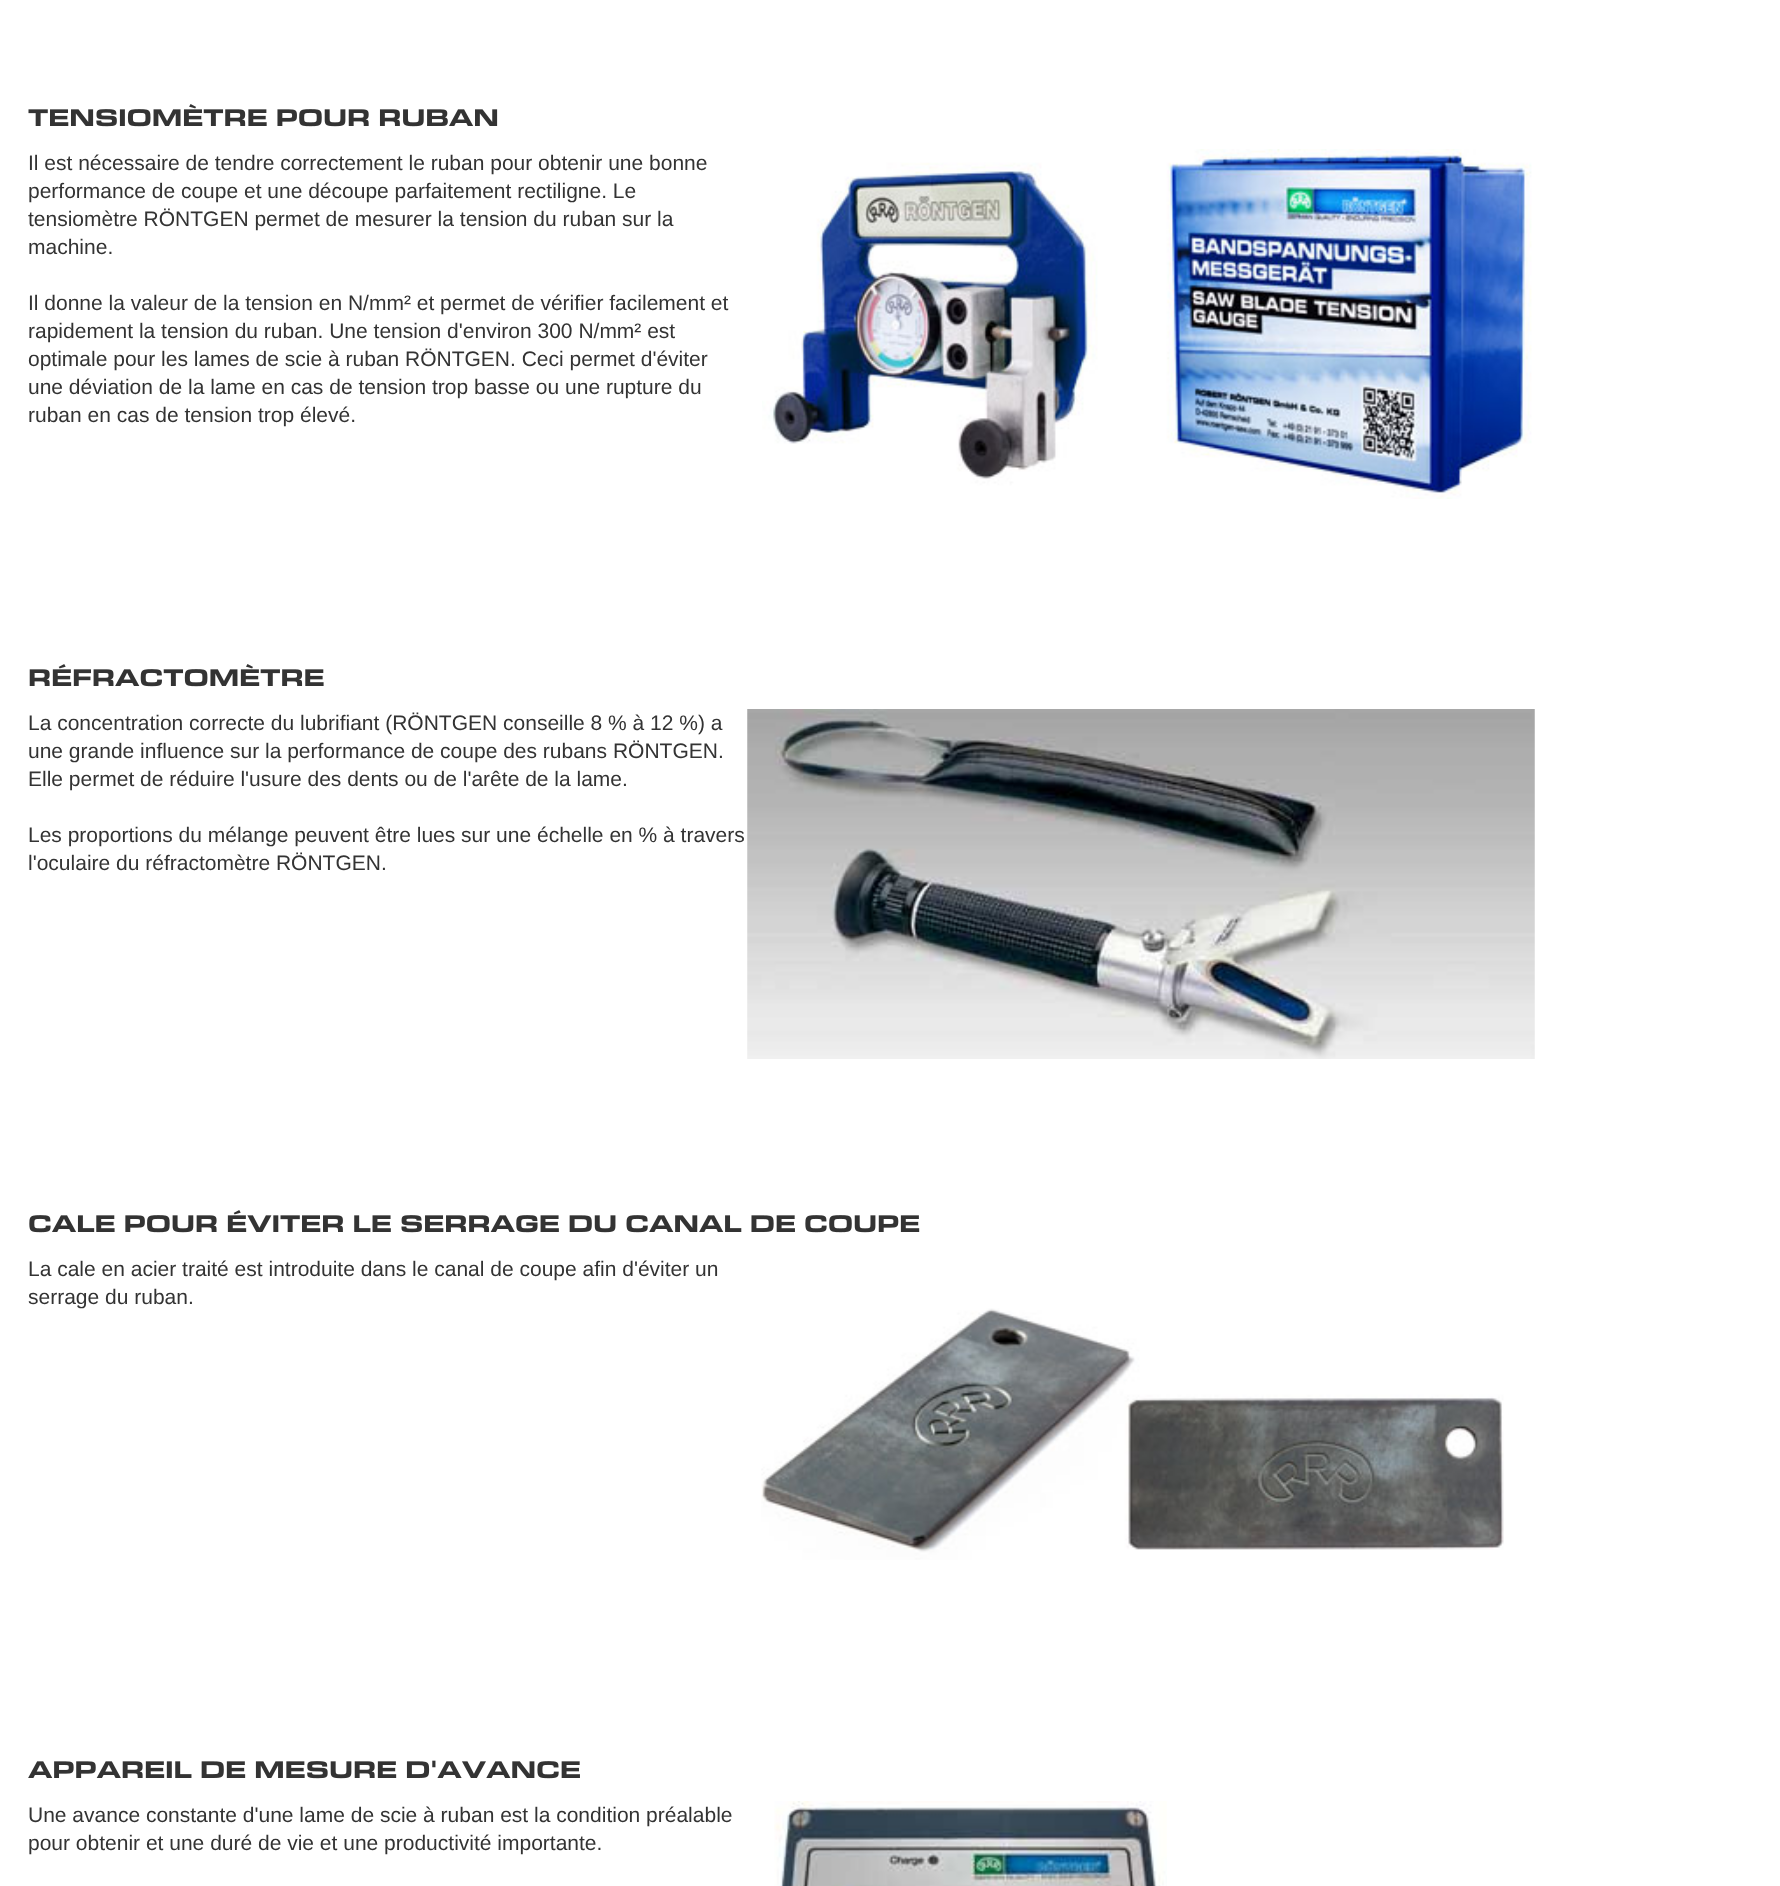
(async () => {
const canvas = document.querySelector("canvas")
canvas.width = 1780
canvas.height = 1886
const c = canvas.getContext("2d")
c.miterLimit = 4
c.fontKerning = "normal"
function T(s,x,y){c.fillText(s,x,y)}
function R(x,y,w,h){c.fillRect(x,y,w,h)}
async function I(src,x,y,w,h){const img=new Image();img.src=src;await img.decode();c.drawImage(img,x,y,w,h)}
c.fillStyle="#fff"
R(0,0,1780,1886)
await I("1.png",28,104,470,23)
c.font="21px Liberation Sans"
c.fillStyle="#333"
T("Il est nécessaire de tendre correctement le ruban pour obtenir une bonne",28,170)
T("performance de coupe et une découpe parfaitement rectiligne. Le",28,198)
T("tensiomètre RÖNTGEN permet de mesurer la tension du ruban sur la",28,226)
T("machine.",28,254)
T("Il donne la valeur de la tension en N/mm² et permet de vérifier facilement et",28,310)
T("rapidement la tension du ruban. Une tension d'environ 300 N/mm² est",28,338)
T("optimale pour les lames de scie à ruban RÖNTGEN. Ceci permet d'éviter",28,366)
T("une déviation de la lame en cas de tension trop basse ou une rupture du",28,394)
T("ruban en cas de tension trop élevé.",28,422)
await I("2.png",762,149,770,350)
await I("3.png",29,664,295,23)
T("La concentration correcte du lubrifiant (RÖNTGEN conseille 8 % à 12 %) a",28,730)
T("une grande influence sur la performance de coupe des rubans RÖNTGEN.",28,758)
T("Elle permet de réduire l'usure des dents ou de l'arête de la lame.",28,786)
T("Les proportions du mélange peuvent être lues sur une échelle en % à travers",28,842)
T("l'oculaire du réfractomètre RÖNTGEN.",28,870)
await I("4.png",747,709,788,350)
await I("5.png",29,1210,891,23)
T("La cale en acier traité est introduite dans le canal de coupe afin d'éviter un",28,1276)
T("serrage du ruban.",28,1304)
await I("6.png",761,1308,743,252)
await I("7.png",28,1760,552,19)
T("Une avance constante d'une lame de scie à ruban est la condition préalable",28,1822)
T("pour obtenir et une duré de vie et une productivité importante.",28,1850)
await I("8.png",774,1801,393,85)
})()
